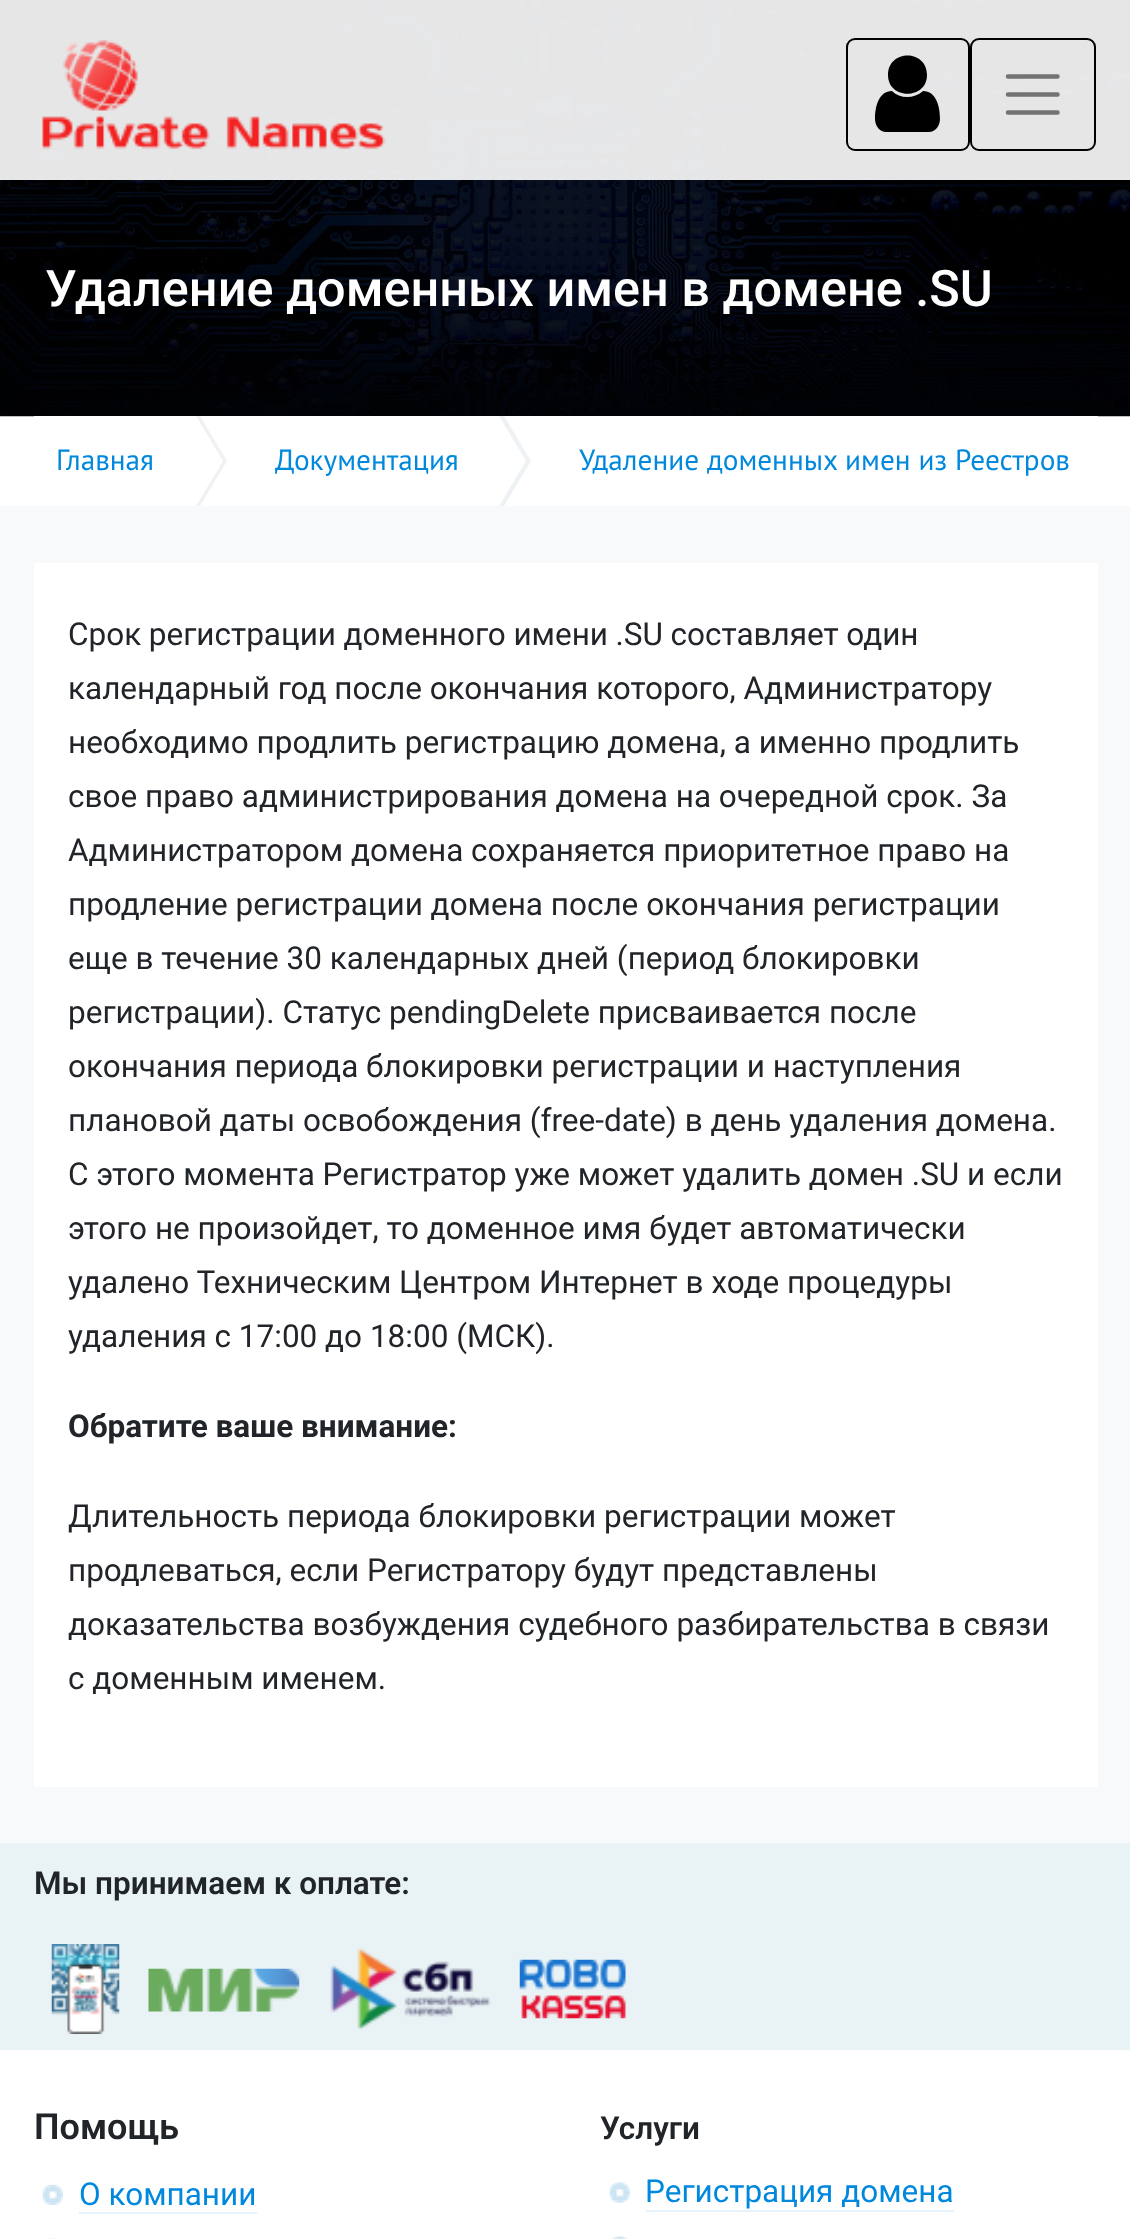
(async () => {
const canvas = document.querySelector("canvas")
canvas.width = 1130
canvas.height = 2239
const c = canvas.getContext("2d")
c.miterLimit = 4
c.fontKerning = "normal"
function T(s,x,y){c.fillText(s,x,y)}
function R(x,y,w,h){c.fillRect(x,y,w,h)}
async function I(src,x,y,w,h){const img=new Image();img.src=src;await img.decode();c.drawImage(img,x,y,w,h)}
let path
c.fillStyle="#fff"
R(0,0,1130,2239)
await I("1.png",0,0,1130,417)
c.fillStyle="#ffffffe6"
R(0,0,1130,180)
await I("2.png",42,40,344,110)
c.beginPath()
c.roundRect(847,39,122,111,8)
c.strokeStyle="#000"
c.lineWidth=2
c.stroke()
c.fillStyle="#000"
path = new Path2D("M940 119c0-13-4-28-17-28c-9 8-23 8-31 0c-13 0-17 15-17 28c0 7 5 13 11 13h43c6 0 11-6 11-13zm-13-44c0-26-39-26-39 0c0 25 39 25 39 0z")
c.fill(path)
c.beginPath()
c.roundRect(971,39,124,111,8)
c.stroke()
path = new Path2D("M1008 76.5h49.5m-49.5 18h49.5m-49.5 18h49.5")
c.strokeStyle="#00000080"
c.lineWidth=4.5
c.lineCap="round"
c.stroke(path)
c.font="500 50.4px Roboto"
c.fillStyle="#fff"
T("Удаление доменных имен в домене .SU",45,306)
R(34,416,1064,1)
c.fillStyle="#eef2f4"
path = new Path2D("M200 416l27 45l-27 45h-40v-90z")
c.fill(path)
c.fillStyle="#fff"
path = new Path2D("M196 416l27 45l-27 45h-41v-90z")
c.fill(path)
c.font="29.25px PT Sans"
c.fillStyle="#08d"
T("Главная",56,470)
c.fillStyle="#eef2f4"
path = new Path2D("M504 416l27 45l-27 45h-40v-90z")
c.fill(path)
c.fillStyle="#fff"
path = new Path2D("M499 416l27 45l-27 45h-40v-90z")
c.fill(path)
c.fillStyle="#08d"
T("Документация",275,470)
T("Удаление доменных имен из Реестров",579,470)
c.fillStyle="#f7f9fa"
R(0,506,1130,1337)
c.fillStyle="#fff"
R(34,563,1064,1224)
c.wordSpacing="-0.25px"
c.font="31.5px Roboto"
c.fillStyle="#212529"
T("Cрок регистрации доменного имени .SU составляет один",68,645)
c.wordSpacing="0px"
T("календарный год после окончания которого, Администратору",68,699)
T("необходимо продлить регистрацию домена, а именно продлить",68,753)
T("свое право администрирования домена на очередной срок. За",68,807)
T("Администратором домена сохраняется приоритетное право на",68,861)
T("продление регистрации домена после окончания регистрации",68,915)
T("еще в течение 30 календарных дней (период блокировки",68,969)
T("регистрации). Статус pendingDelete присваивается после",68,1023)
T("окончания периода блокировки регистрации и наступления",68,1077)
T("плановой даты освобождения (free-date) в день удаления домена.",68,1131)
T("С этого момента Регистратор уже может удалить домен .SU и если",68,1185)
T("этого не произойдет, то доменное имя будет автоматически",68,1239)
T("удалено Техническим Центром Интернет в ходе процедуры",68,1293)
T("удаления с 17:00 до 18:00 (МСК).",68,1347)
c.font="bold 31.5px Roboto"
T("Обратите ваше внимание:",68,1437)
c.font="31.5px Roboto"
T("Длительность периода блокировки регистрации может",68,1527)
T("продлеваться, если Регистратору будут представлены",68,1581)
T("доказательства возбуждения судебного разбирательства в связи",68,1635)
T("с доменным именем.",68,1689)
c.fillStyle="#e9f2f5"
R(0,1843,1130,207)
c.font="600 31.5px Roboto"
c.fillStyle="#212529"
T("Мы принимаем к оплате:",34,1894)
await I("3.png",51,1944,69,90)
await I("4.png",148,1968,152,44)
await I("5.png",330,1948,161,82)
await I("6.png",519,1959,107,60)
c.font="600 36px Roboto"
T("Помощь",34,2139)
await I("7.png",42,2184,21,21)
c.font="31.5px Roboto"
c.fillStyle="#08d"
T("О компании",79,2205)
c.fillStyle="#e6f3fc"
R(79,2212,178,2)
await I("8.png",48,2238,9,1)
c.font="600 31.5px Roboto"
c.fillStyle="#212529"
T("Услуги",600,2139)
await I("9.png",609,2182,21,21)
c.font="31.5px Roboto"
c.fillStyle="#08d"
T("Регистрация домена",645,2202)
c.fillStyle="#e6f3fc"
R(646,2210,308,2)
await I("10.png",611,2236,17,3)
})()
